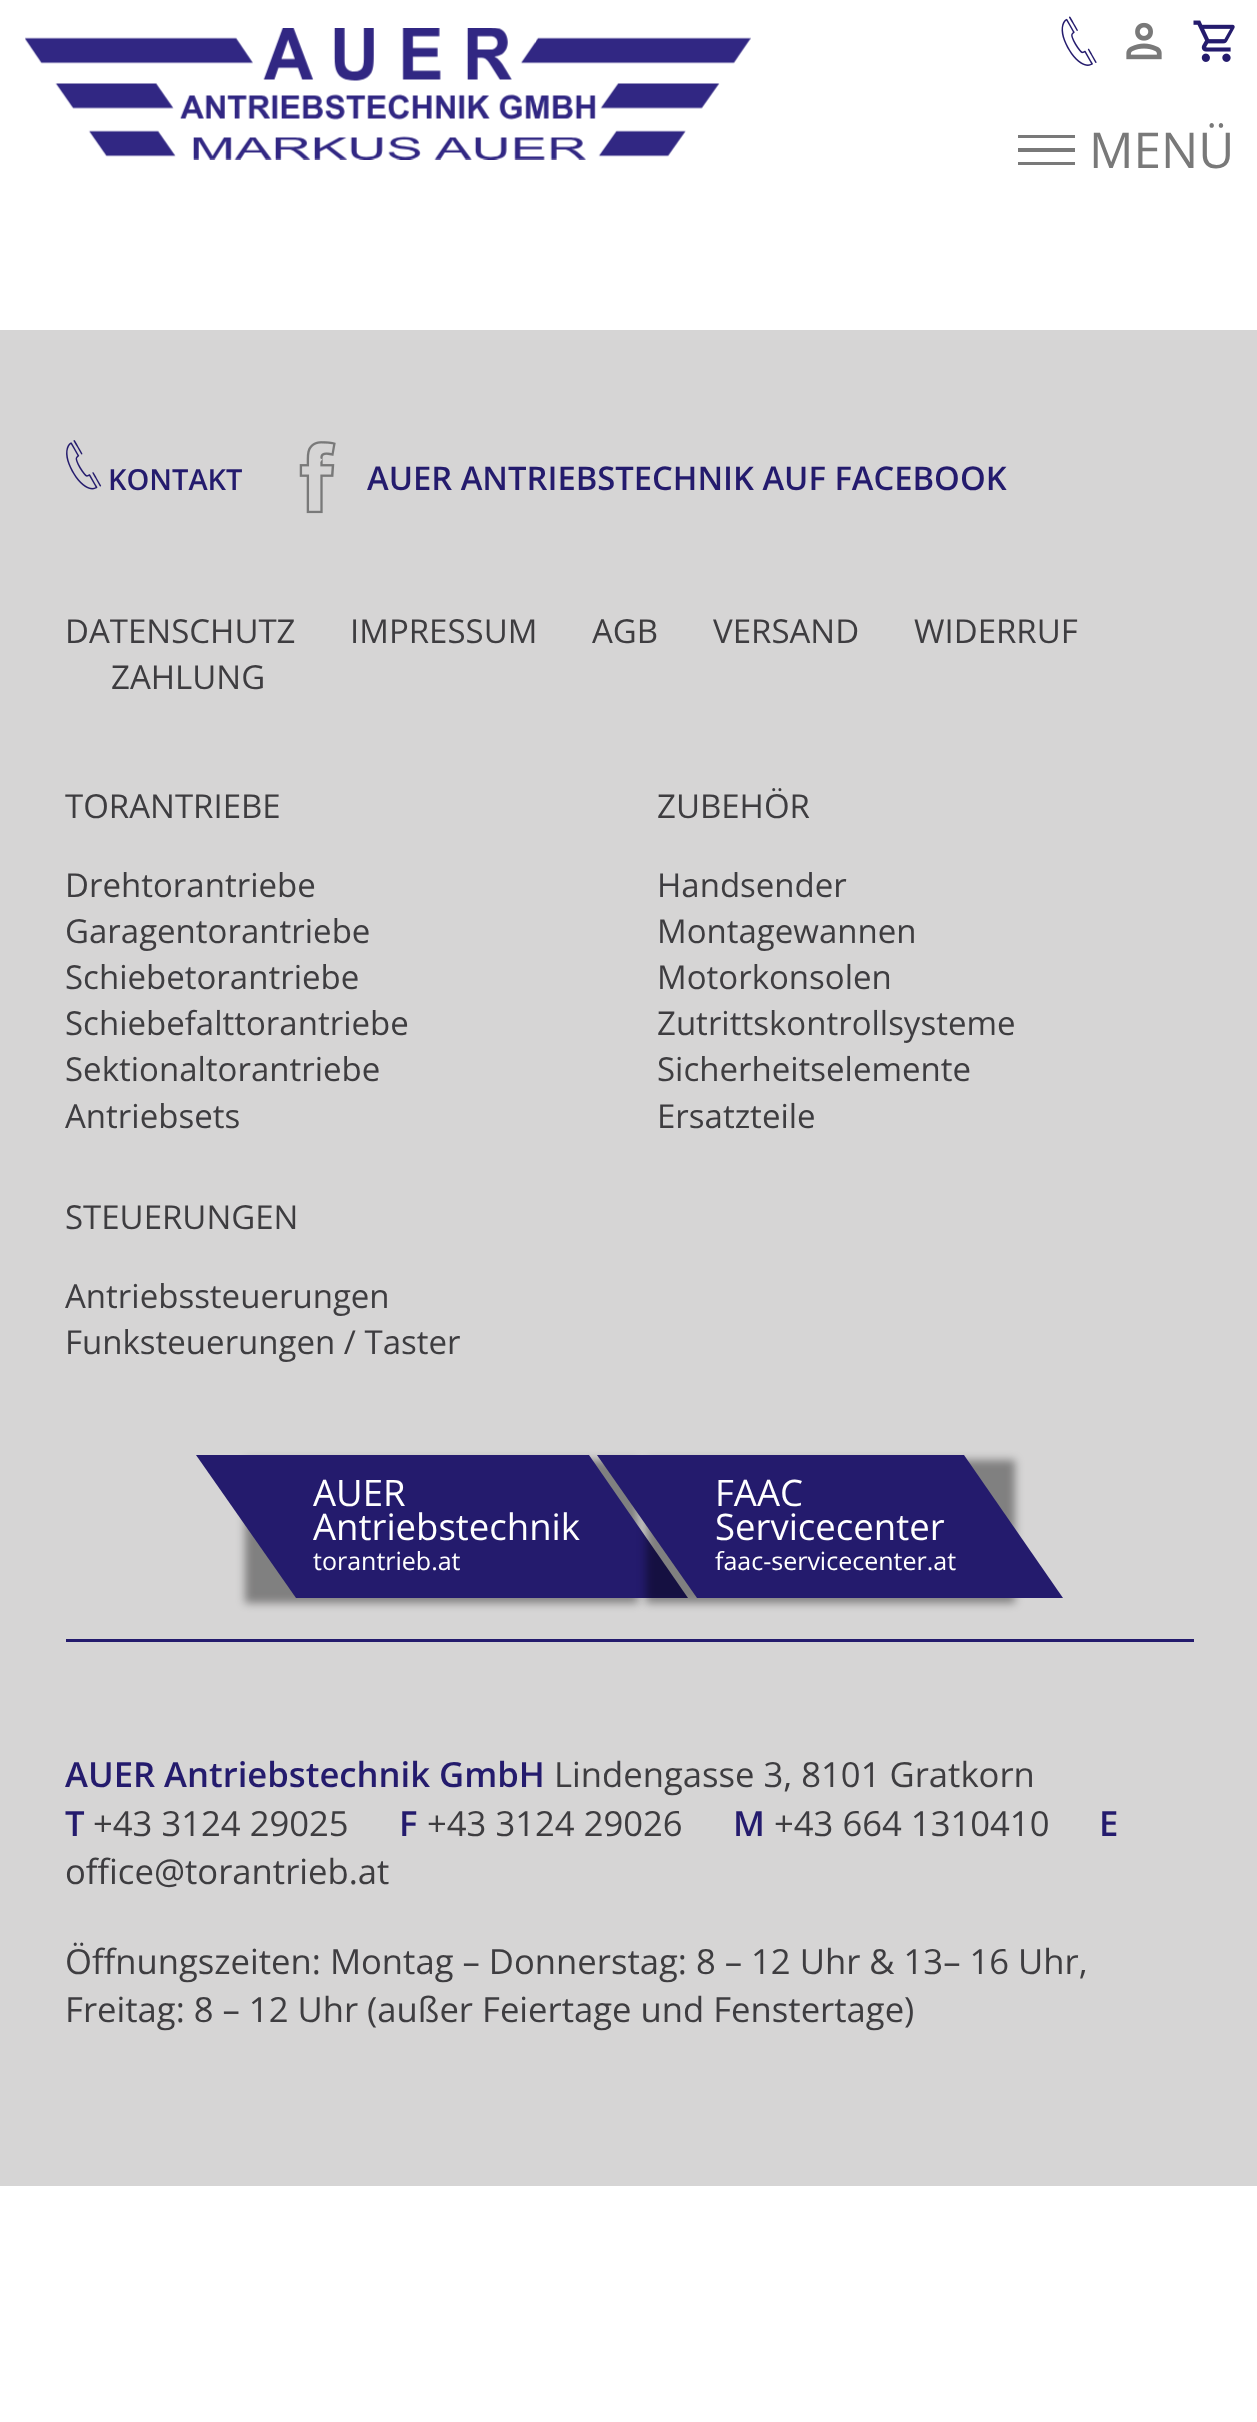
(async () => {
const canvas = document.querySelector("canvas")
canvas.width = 1257
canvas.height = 2422
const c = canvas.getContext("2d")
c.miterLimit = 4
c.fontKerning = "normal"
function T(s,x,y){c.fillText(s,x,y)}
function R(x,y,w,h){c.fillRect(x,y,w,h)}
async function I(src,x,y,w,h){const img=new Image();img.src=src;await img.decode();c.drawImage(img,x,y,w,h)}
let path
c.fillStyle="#fff"
R(0,0,1257,2422)
await I("1.png",25,28,726,132)
await I("2.png",1061,16,36,50)
await I("3.png",1126,22,36,38)
await I("4.png",1193,20,42,42)
c.fillStyle="#797979"
path = new Path2D("M1018 135h57v3h-57zm0 13h57v4h-57zm0 14h57v3h-57z")
c.fill(path)
c.font="49.5px Open Sans"
T("MENÜ",1089,168)
c.fillStyle="#d6d5d5"
R(0,330,1257,1856)
await I("5.png",66,440,36,50)
c.font="600 29px Open Sans"
c.fillStyle="#241b6d"
T("KONTAKT",108,490)
await I("6.png",299,441,37,73)
c.font="600 32.75px Open Sans"
T("AUER ANTRIEBSTECHNIK AUF FACEBOOK",367,490)
c.font="33px Open Sans"
c.fillStyle="#3e3d40"
T("DATENSCHUTZ",65,643)
T("IMPRESSUM",350,643)
T("AGB",592,643)
T("VERSAND",713,643)
T("WIDERRUF",914,643)
T("ZAHLUNG",111,689)
T("TORANTRIEBE",65,818)
T("Drehtorantriebe",65,897)
T("Garagentorantriebe",65,943)
T("Schiebetorantriebe",65,989)
T("Schiebefalttorantriebe",65,1035)
T("Sektionaltorantriebe",65,1081)
T("Antriebsets",65,1128)
T("ZUBEHÖR",657,818)
T("Handsender",657,897)
T("Montagewannen",657,943)
T("Motorkonsolen",657,989)
T("Zutrittskontrollsysteme",657,1035)
T("Sicherheitselemente",657,1081)
T("Ersatzteile",657,1128)
T("STEUERUNGEN",65,1229)
T("Antriebssteuerungen",65,1308)
T("Funksteuerungen / Taster",65,1354)
c.fillStyle="#00000066"
c.filter="blur(4px)"
c.beginPath()
c.rect(245,1460,393,143)
c.fill()
c.filter="none"
c.fillStyle="#241b6d"
path = new Path2D("M196 1455h393l99 143h-392z")
c.fill(path)
c.font="36.5px Open Sans"
c.fillStyle="#fff"
T("AUER",313,1506)
T("Antriebstechnik",313,1540)
c.font="25px Open Sans"
T("torantrieb.at",313,1570)
c.fillStyle="#00000066"
c.filter="blur(4px)"
c.beginPath()
c.rect(646,1460,369,143)
c.fill()
c.filter="none"
c.fillStyle="#241b6d"
path = new Path2D("M597 1455h367l99 143h-366z")
c.fill(path)
c.font="36.5px Open Sans"
c.fillStyle="#fff"
T("FAAC",715,1506)
T("Servicecenter",715,1540)
c.font="25px Open Sans"
T("faac-servicecenter.at",715,1570)
c.fillStyle="#241b6d"
R(66,1639,1128,3)
c.font="600 34.65px Open Sans"
T("AUER Antriebstechnik GmbH",65,1787)
c.font="34.65px Open Sans"
c.fillStyle="#3e3d40"
T("Lindengasse 3, 8101 Gratkorn",554,1787)
c.font="600 34.65px Open Sans"
c.fillStyle="#241b6d"
T("T",65,1836)
c.font="34.65px Open Sans"
c.fillStyle="#3e3d40"
T("+43 3124 29025",93,1836)
c.font="600 34.65px Open Sans"
c.fillStyle="#241b6d"
T("F",399,1836)
c.font="34.65px Open Sans"
c.fillStyle="#3e3d40"
T("+43 3124 29026",427,1836)
c.font="600 34.65px Open Sans"
c.fillStyle="#241b6d"
T("M",733,1836)
c.font="34.65px Open Sans"
c.fillStyle="#3e3d40"
T("+43 664 1310410",774,1836)
c.font="600 34.65px Open Sans"
c.fillStyle="#241b6d"
T("E",1099,1836)
c.font="34.65px Open Sans"
c.fillStyle="#3e3d40"
T("office@torantrieb.at",65,1884)
T("Öffnungszeiten: Montag – Donnerstag: 8 – 12 Uhr & 13– 16 Uhr,",65,1974)
T("Freitag: 8 – 12 Uhr (außer Feiertage und Fenstertage)",65,2022)
})()
